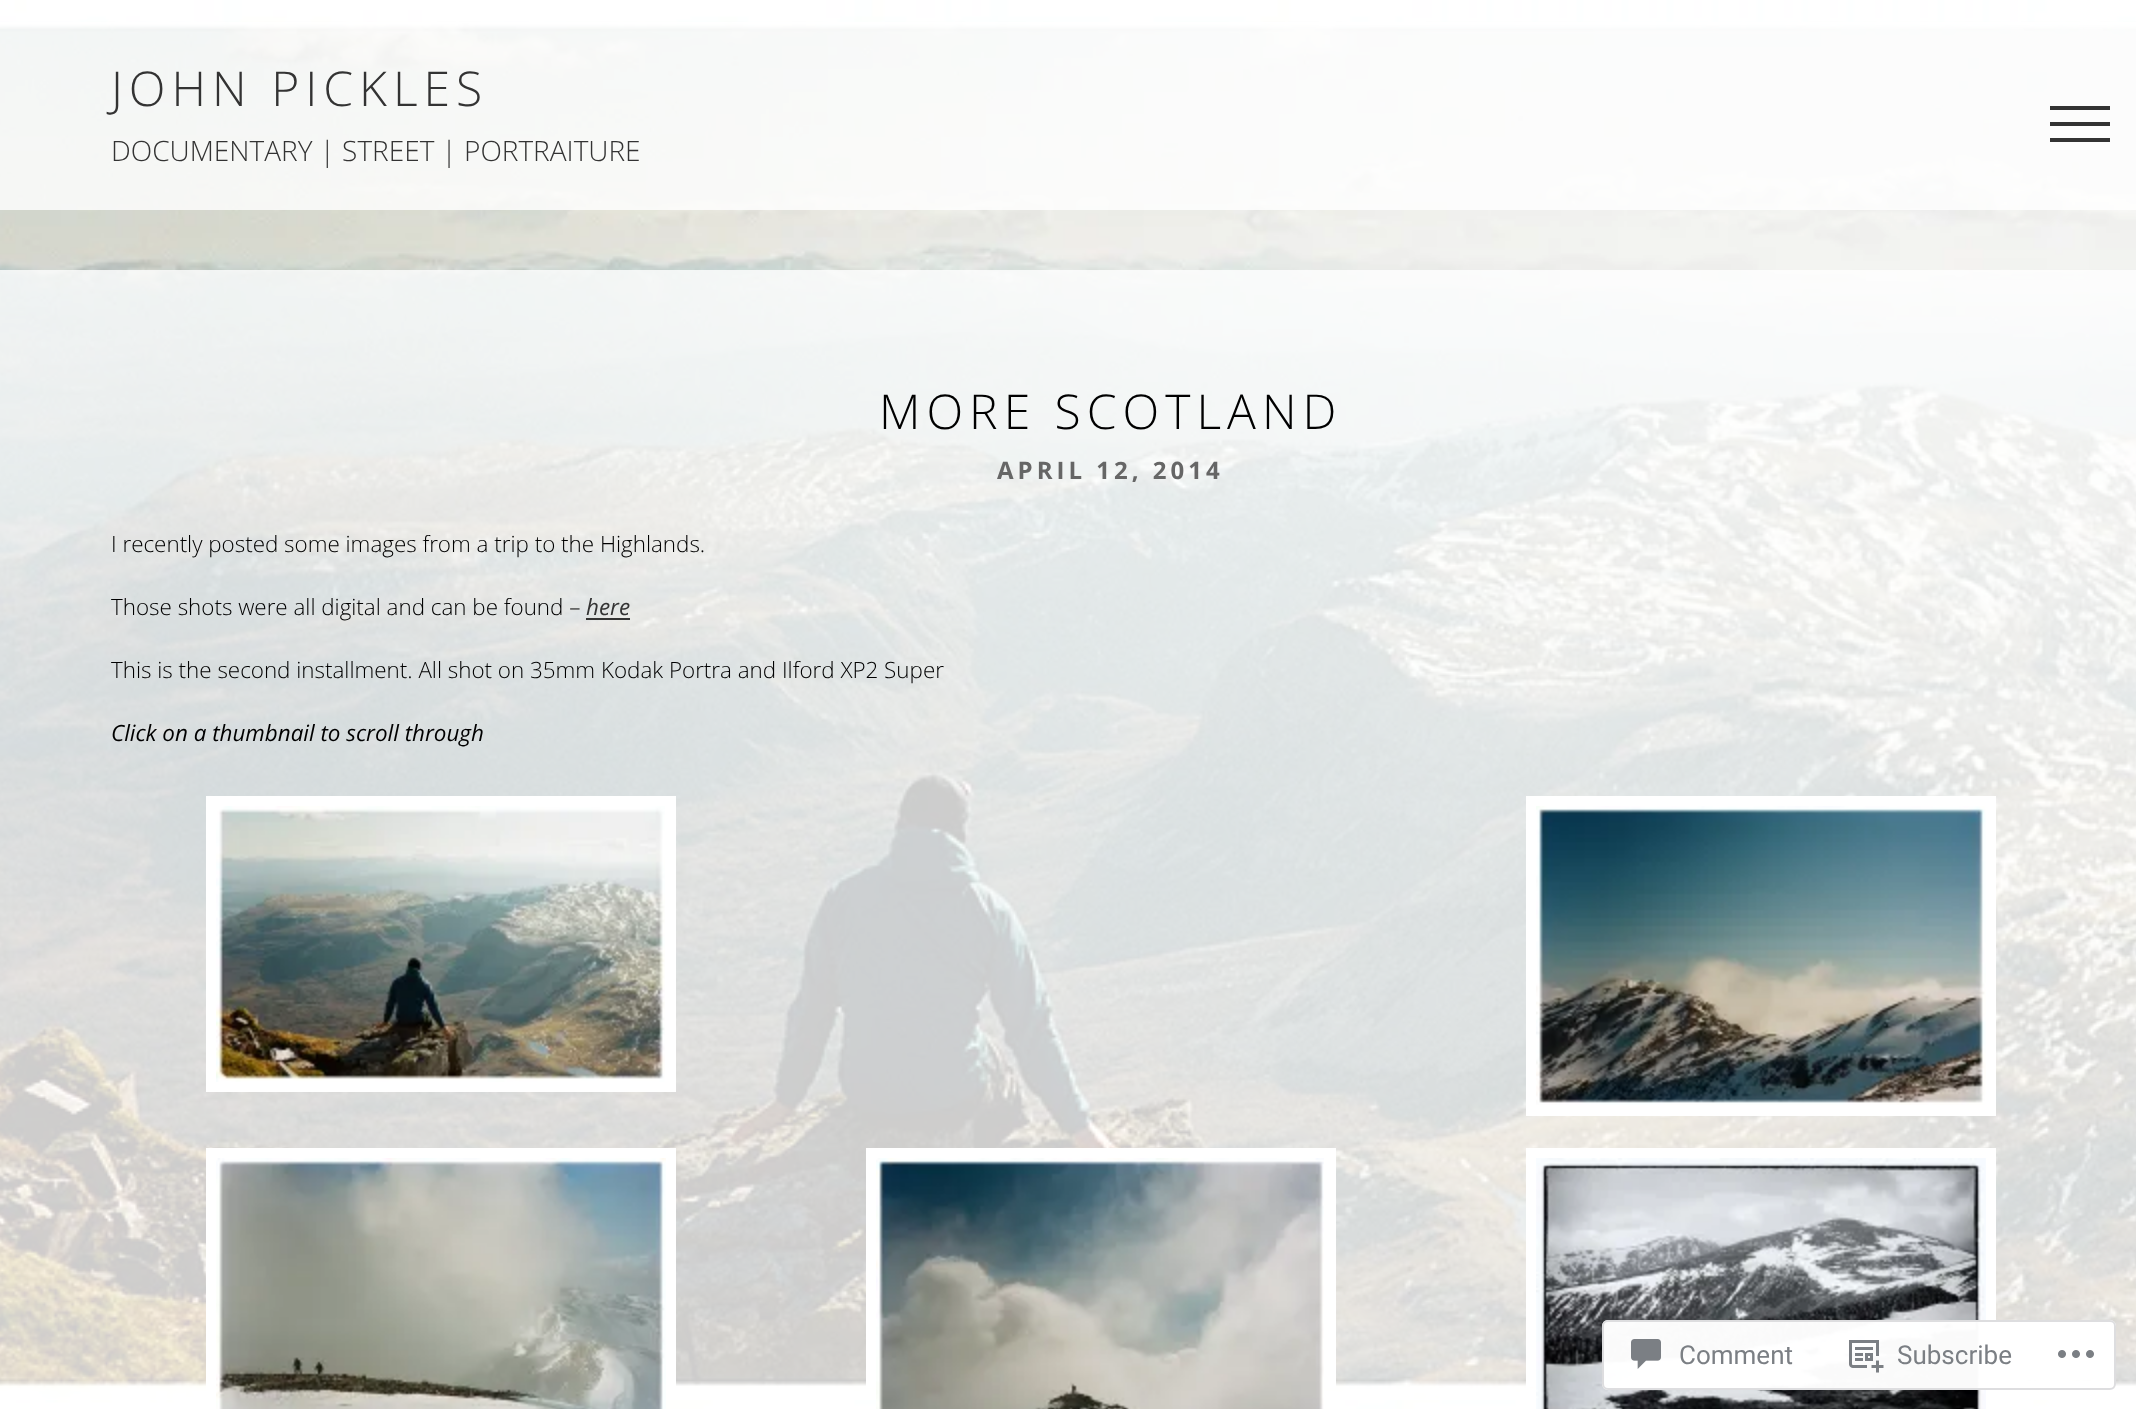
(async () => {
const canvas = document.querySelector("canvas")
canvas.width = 2136
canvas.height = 1409
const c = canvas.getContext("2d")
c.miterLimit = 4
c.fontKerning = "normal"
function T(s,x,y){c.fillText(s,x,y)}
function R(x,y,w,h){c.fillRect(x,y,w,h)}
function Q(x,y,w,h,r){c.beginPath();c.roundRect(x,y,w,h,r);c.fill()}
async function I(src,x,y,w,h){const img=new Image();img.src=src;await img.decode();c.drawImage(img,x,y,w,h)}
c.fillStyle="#fff"
R(0,0,2136,1409)
await I("1.png",0,0,2136,1409)
c.fillStyle="#ffffffcc"
R(0,22,2136,188)
c.letterSpacing="6px"
c.font="300 48px Open Sans"
c.fillStyle="#333"
T("JOHN PICKLES",111,106)
c.letterSpacing="0px"
c.font="300 28px Open Sans"
T("DOCUMENTARY | STREET | PORTRAITURE",111,161)
R(2050,106,60,4)
R(2050,122,60,4)
R(2050,138,60,4)
c.fillStyle="#ffffffcc"
R(0,270,2136,1130)
c.letterSpacing="6px"
c.font="300 48px Open Sans"
c.fillStyle="#000"
T("MORE SCOTLAND",879,429)
c.letterSpacing="4px"
c.font="bold 24px Open Sans"
c.fillStyle="#666"
T("APRIL 12, 2014",997,479)
c.letterSpacing="0px"
c.font="300 22.4px Open Sans"
c.fillStyle="#000"
T("I recently posted some images from a trip to the Highlands.",111,552)
T("Those shots were all digital and can be found –",111,615)
c.font="italic 22.4px Open Sans"
c.fillStyle="#333"
T("here",586,615)
R(586,618,44,2)
c.font="300 22.4px Open Sans"
c.fillStyle="#000"
T("This is the second installment. All shot on 35mm Kodak Portra and Ilford XP2 Super",111,678)
c.font="italic 22.4px Open Sans"
T("Click on a thumbnail to scroll through",111,741)
c.fillStyle="#fff"
R(206,796,470,296)
await I("2.png",216,806,449,276)
R(1526,796,470,320)
await I("3.png",1536,806,450,299)
R(206,1148,470,242)
await I("4.png",216,1158,450,251)
R(866,1148,470,240)
await I("5.png",876,1158,448,251)
R(1526,1148,470,239)
await I("6.png",1536,1158,450,251)
c.fillStyle="#fffffffa"
Q(1602,1320,514,70,6)
c.beginPath()
c.roundRect(1603,1321,512,68,5)
c.strokeStyle="#dcdcdefa"
c.lineWidth=2
c.stroke()
await I("7.png",1631,1339,30,30)
c.font="26px Roboto"
c.fillStyle="#7b7f84"
T("Comment",1679,1364)
await I("8.png",1849,1340,35,33)
T("Subscribe",1897,1364)
await I("9.png",2058,1350,36,8)
})()
